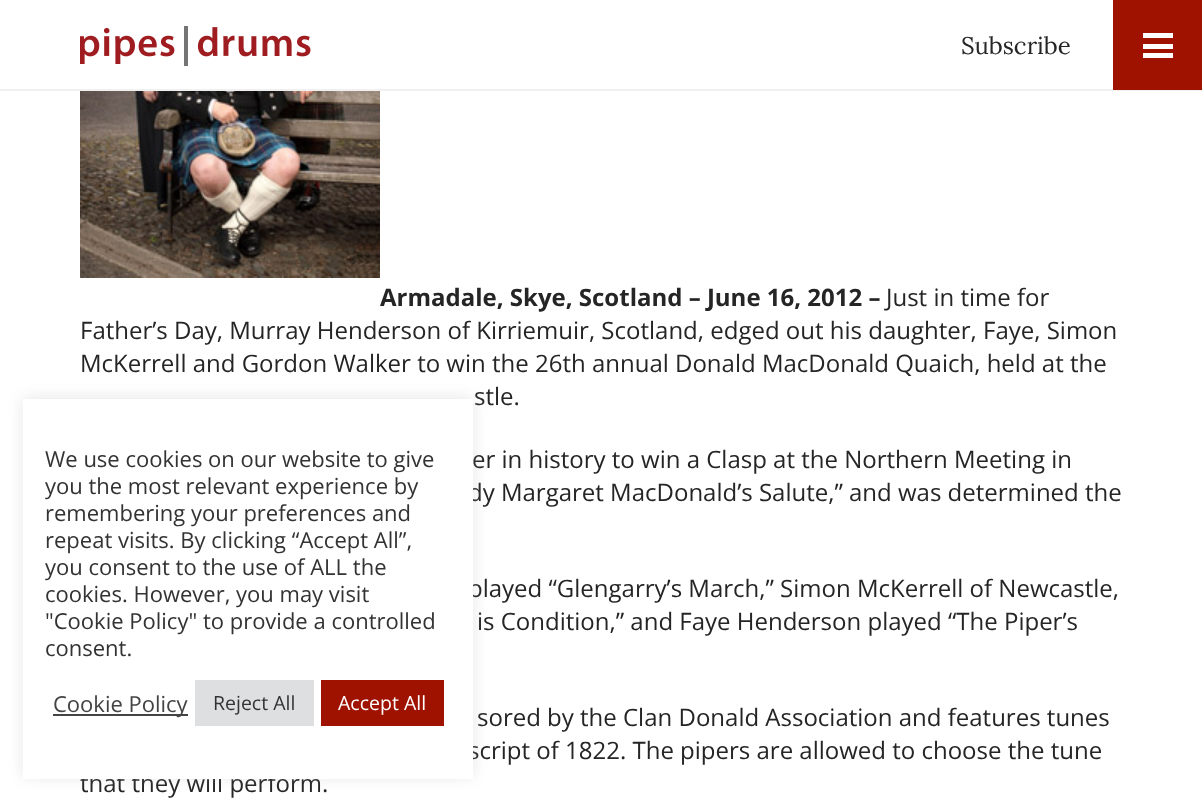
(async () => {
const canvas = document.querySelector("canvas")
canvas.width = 1202
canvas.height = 801
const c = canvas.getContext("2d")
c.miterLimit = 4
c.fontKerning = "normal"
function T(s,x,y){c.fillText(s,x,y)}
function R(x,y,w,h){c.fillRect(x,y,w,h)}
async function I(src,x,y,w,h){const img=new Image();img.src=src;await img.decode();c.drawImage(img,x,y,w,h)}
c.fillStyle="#fff"
R(0,0,1202,801)
c.fillStyle="#f0f0f0"
R(0,89,1202,2)
await I("1.png",80,26,231,40)
c.font="24px Lora"
c.fillStyle="#252525"
T("Subscribe",961,54)
c.fillStyle="#9f1200"
R(1113,0,89,90)
c.fillStyle="#fff"
R(1143,33,30,5)
R(1143,44,30,5)
R(1143,53,30,5)
await I("2.png",80,91,300,187)
c.font="bold 24px Open Sans"
c.fillStyle="#252525"
T("Armadale, Skye, Scotland – June 16, 2012 –",380,306)
c.font="24px Open Sans"
T("Just in time for",886,306)
T("Father’s Day, Murray Henderson of Kirriemuir, Scotland, edged out his daughter, Faye, Simon",80,339)
T("McKerrell and Gordon Walker to win the 26th annual Donald MacDonald Quaich, held at the",80,372)
T("stle.",474,405)
T("er in history to win a Clasp at the Northern Meeting in",472,468)
T("dy Margaret MacDonald’s Salute,” and was determined the",468,501)
T("played “Glengarry’s March,” Simon McKerrell of Newcastle,",468,597)
T("is Condition,” and Faye Henderson played “The Piper’s",477,630)
T("sored by the Clan Donald Association and features tunes",477,726)
T("script of 1822. The pipers are allowed to choose the tune",468,759)
T("that they will perform.",80,792)
c.fillStyle="#acabab4d"
c.filter="blur(7.5px)"
c.beginPath()
c.rect(23,398,450,379)
c.fill()
c.filter="none"
c.fillStyle="#fff"
R(23,399,450,380)
c.font="22px Open Sans"
c.fillStyle="#333"
T("We use cookies on our website to give",45,467)
T("you the most relevant experience by",45,494)
T("remembering your preferences and",45,521)
T("repeat visits. By clicking “Accept All”,",45,548)
T("you consent to the use of ALL the",45,575)
T("cookies. However, you may visit",45,602)
T("\"Cookie Policy\" to provide a controlled",45,629)
T("consent.",45,656)
c.fillStyle="#444"
R(53,714,135,2)
T("Cookie Policy",53,712)
c.fillStyle="#dedfe0"
R(195,680,119,46)
c.font="19.5px Open Sans"
c.fillStyle="#333"
T("Reject All",213,710)
c.fillStyle="#9f1200"
R(321,680,123,46)
c.fillStyle="#fff"
T("Accept All",338,710)
})()
